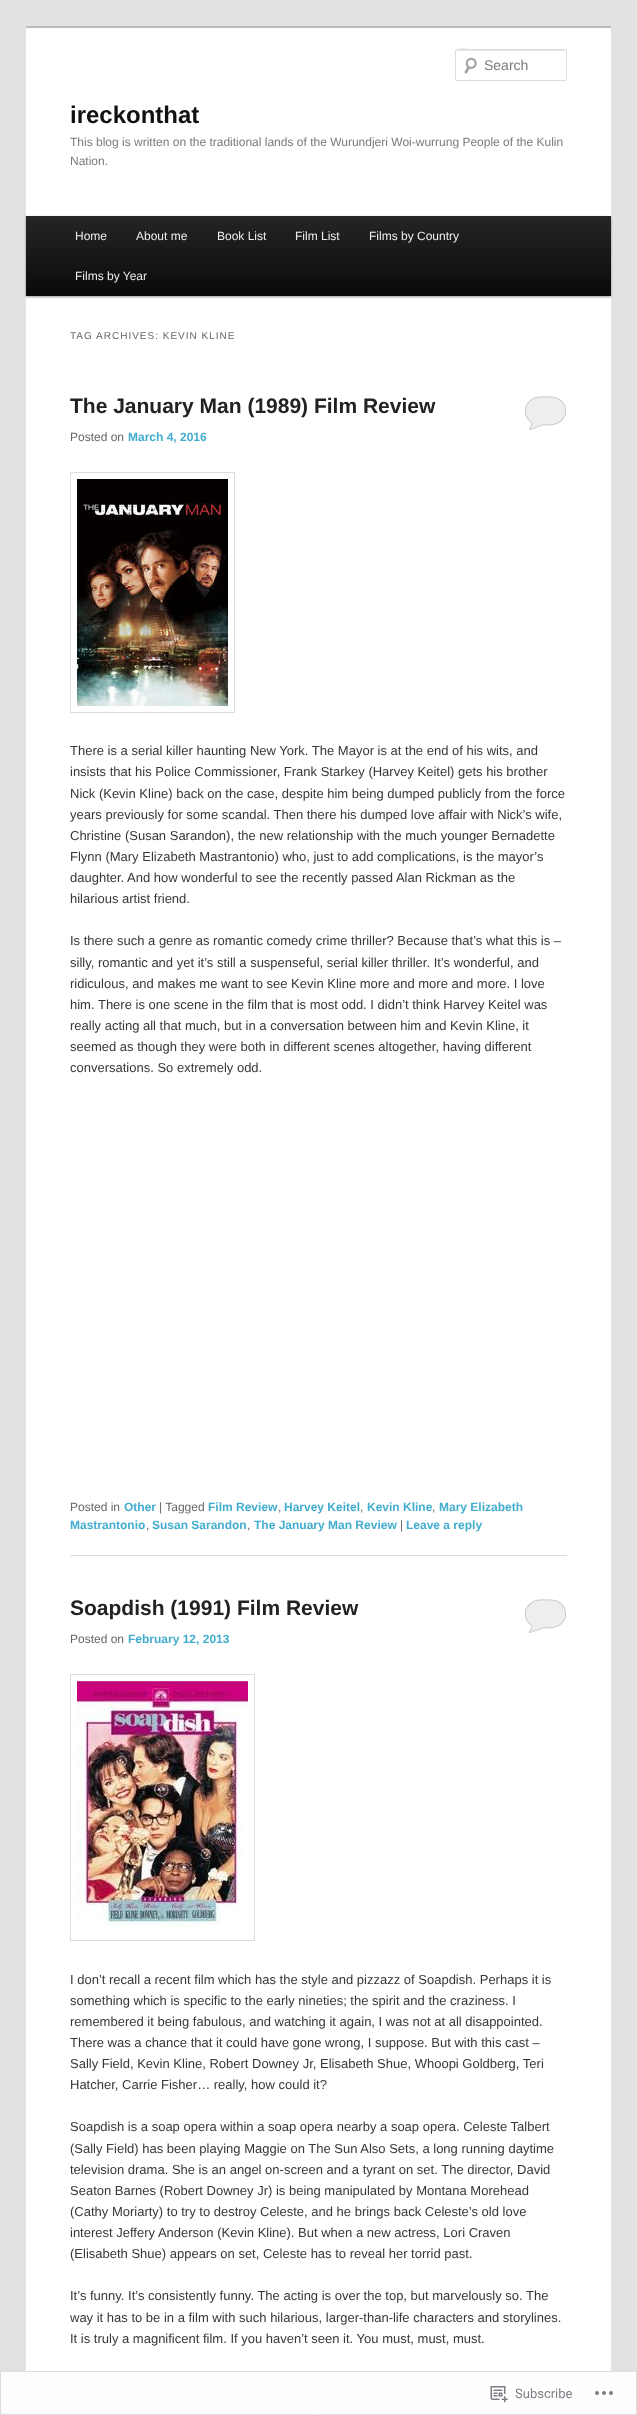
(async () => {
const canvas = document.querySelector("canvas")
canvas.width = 637
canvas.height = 2415
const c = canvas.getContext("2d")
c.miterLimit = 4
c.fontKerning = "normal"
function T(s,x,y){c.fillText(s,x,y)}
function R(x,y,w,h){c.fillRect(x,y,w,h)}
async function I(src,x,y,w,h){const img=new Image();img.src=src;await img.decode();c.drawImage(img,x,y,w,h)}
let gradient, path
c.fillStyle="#e2e2e2"
R(0,0,637,2415)
c.fillStyle="#fff"
R(26,28,585,2343)
c.fillStyle="#bbb"
R(26,26,585,2)
await I("1.png",464,57,13,17)
c.fillStyle="#e6e6e6"
path = new Path2D("M457 51h109v1l-1-2h-90c-4 0-19-5-19 2c0-1 0-1 1-1z")
c.fill(path)
c.beginPath()
c.roundRect(455.5,49.5,111,31,1.5)
c.strokeStyle="#ddd"
c.stroke()
c.font="14px Liberation Sans"
c.fillStyle="#7a7a7a"
T("Search",484,70)
c.font="bold 24px Liberation Sans"
c.fillStyle="#111"
T("ireckonthat",70,123)
c.font="12px Liberation Sans"
c.fillStyle="#7a7a7a"
T("This blog is written on the traditional lands of the Wurundjeri Woi-wurrung People of the Kulin",70,146)
T("Nation.",70,165)
c.fillStyle="#00000066"
c.filter="blur(1px)"
c.beginPath()
c.rect(26,217,585,80)
c.fill()
c.filter="none"
gradient = c.createLinearGradient(319,216,319,296)
gradient.addColorStop(0,"#252525")
gradient.addColorStop(1,"#0a0a0a")
c.fillStyle = gradient
R(26,216,585,80)
c.fillStyle="#eee"
T("Home",75,240)
T("About me",136,240)
T("Book List",217,240)
T("Film List",295,240)
T("Films by Country",369,240)
T("Films by Year",75,280)
c.letterSpacing="1px"
c.font="10px Liberation Sans"
c.fillStyle="#666"
T("TAG ARCHIVES: KEVIN KLINE",70,339)
c.fillStyle="#ddd"
R(70,1555,497,1)
c.letterSpacing="0px"
c.font="bold 21px Liberation Sans"
c.fillStyle="#222"
T("The January Man (1989) Film Review",70,413)
c.fillStyle="#eee"
R(525,396,41,34)
await I("2.png",524,394,43,36)
c.font="12px Liberation Sans"
c.fillStyle="#666"
T("Posted on",70,441)
c.font="bold 12px Liberation Sans"
c.fillStyle="#43add0"
T("March 4, 2016",128,441)
c.strokeRect(70.5,472.5,164,240)
await I("3.png",77,479,151,227)
c.font="13px Liberation Sans"
c.fillStyle="#373737"
T("There is a serial killer haunting New York. The Mayor is at the end of his wits, and",70,755)
T("insists that his Police Commissioner, Frank Starkey (Harvey Keitel) gets his brother",70,776)
T("Nick (Kevin Kline) back on the case, despite him being dumped publicly from the force",70,798)
T("years previously for some scandal. Then there his dumped love affair with Nick’s wife,",70,819)
T("Christine (Susan Sarandon), the new relationship with the much younger Bernadette",70,840)
T("Flynn (Mary Elizabeth Mastrantonio) who, just to add complications, is the mayor’s",70,861)
T("daughter. And how wonderful to see the recently passed Alan Rickman as the",70,882)
T("hilarious artist friend.",70,903)
T("Is there such a genre as romantic comedy crime thriller? Because that’s what this is –",70,945)
T("silly, romantic and yet it’s still a suspenseful, serial killer thriller. It’s wonderful, and",70,967)
T("ridiculous, and makes me want to see Kevin Kline more and more and more. I love",70,988)
T("him. There is one scene in the film that is most odd. I didn’t think Harvey Keitel was",70,1009)
T("really acting all that much, but in a conversation between him and Kevin Kline, it",70,1030)
T("seemed as though they were both in different scenes altogether, having different",70,1051)
T("conversations. So extremely odd.",70,1072)
c.font="12px Liberation Sans"
c.fillStyle="#666"
T("Posted in",70,1511)
c.font="bold 12px Liberation Sans"
c.fillStyle="#43add0"
T("Other",124,1511)
c.font="12px Liberation Sans"
c.fillStyle="#666"
T("| Tagged",159,1511)
c.font="bold 12px Liberation Sans"
c.fillStyle="#43add0"
T("Film Review",208,1511)
c.font="12px Liberation Sans"
c.fillStyle="#666"
T(",",278,1511)
c.font="bold 12px Liberation Sans"
c.fillStyle="#43add0"
T("Harvey Keitel",284,1511)
c.font="12px Liberation Sans"
c.fillStyle="#666"
T(",",360,1511)
c.font="bold 12px Liberation Sans"
c.fillStyle="#43add0"
T("Kevin Kline",367,1511)
c.font="12px Liberation Sans"
c.fillStyle="#666"
T(",",432,1511)
c.font="bold 12px Liberation Sans"
c.fillStyle="#43add0"
T("Mary Elizabeth",439,1511)
T("Mastrantonio",70,1529)
c.font="12px Liberation Sans"
c.fillStyle="#666"
T(",",146,1529)
c.font="bold 12px Liberation Sans"
c.fillStyle="#43add0"
T("Susan Sarandon",152,1529)
c.font="12px Liberation Sans"
c.fillStyle="#666"
T(",",247,1529)
c.font="bold 12px Liberation Sans"
c.fillStyle="#43add0"
T("The January Man Review",254,1529)
c.font="12px Liberation Sans"
c.fillStyle="#666"
T("|",400,1529)
c.font="bold 12px Liberation Sans"
c.fillStyle="#43add0"
T("Leave a reply",406,1529)
c.font="bold 21px Liberation Sans"
c.fillStyle="#222"
T("Soapdish (1991) Film Review",70,1615)
c.fillStyle="#eee"
R(525,1599,41,34)
await I("2.png",524,1597,43,36)
c.font="12px Liberation Sans"
c.fillStyle="#666"
T("Posted on",70,1643)
c.font="bold 12px Liberation Sans"
c.fillStyle="#43add0"
T("February 12, 2013",128,1643)
c.strokeRect(70.5,1674.5,184,266)
await I("4.png",77,1681,171,245)
c.font="13px Liberation Sans"
c.fillStyle="#373737"
T("I don’t recall a recent film which has the style and pizzazz of Soapdish. Perhaps it is",70,1984)
T("something which is specific to the early nineties; the spirit and the craziness. I",70,2005)
T("remembered it being fabulous, and watching it again, I was not at all disappointed.",70,2026)
T("There was a chance that it could have gone wrong, I suppose. But with this cast –",70,2047)
T("Sally Field, Kevin Kline, Robert Downey Jr, Elisabeth Shue, Whoopi Goldberg, Teri",70,2068)
T("Hatcher, Carrie Fisher… really, how could it?",70,2089)
T("Soapdish is a soap opera within a soap opera nearby a soap opera. Celeste Talbert",70,2131)
T("(Sally Field) has been playing Maggie on The Sun Also Sets, a long running daytime",70,2153)
T("television drama. She is an angel on-screen and a tyrant on set. The director, David",70,2174)
T("Seaton Barnes (Robert Downey Jr) is being manipulated by Montana Morehead",70,2195)
T("(Cathy Moriarty) to try to destroy Celeste, and he brings back Celeste’s old love",70,2216)
T("interest Jeffery Anderson (Kevin Kline). But when a new actress, Lori Craven",70,2237)
T("(Elisabeth Shue) appears on set, Celeste has to reveal her torrid past.",70,2258)
T("It’s funny. It’s consistently funny. The acting is over the top, but marvelously so. The",70,2300)
T("way it has to be in a film with such hilarious, larger-than-life characters and storylines.",70,2322)
T("It is truly a magnificent film. If you haven’t seen it. You must, must, must.",70,2343)
c.fillStyle="#fefefe"
c.beginPath()
c.rect(.5,2371.5,636,43)
c.fill()
c.strokeStyle="#dddddf"
c.stroke()
await I("5.png",490,2386,18,17)
c.font="13px Roboto"
c.fillStyle="#7b7f85"
T("Subscribe",515,2398)
await I("6.png",595,2391,18,4)
})()
